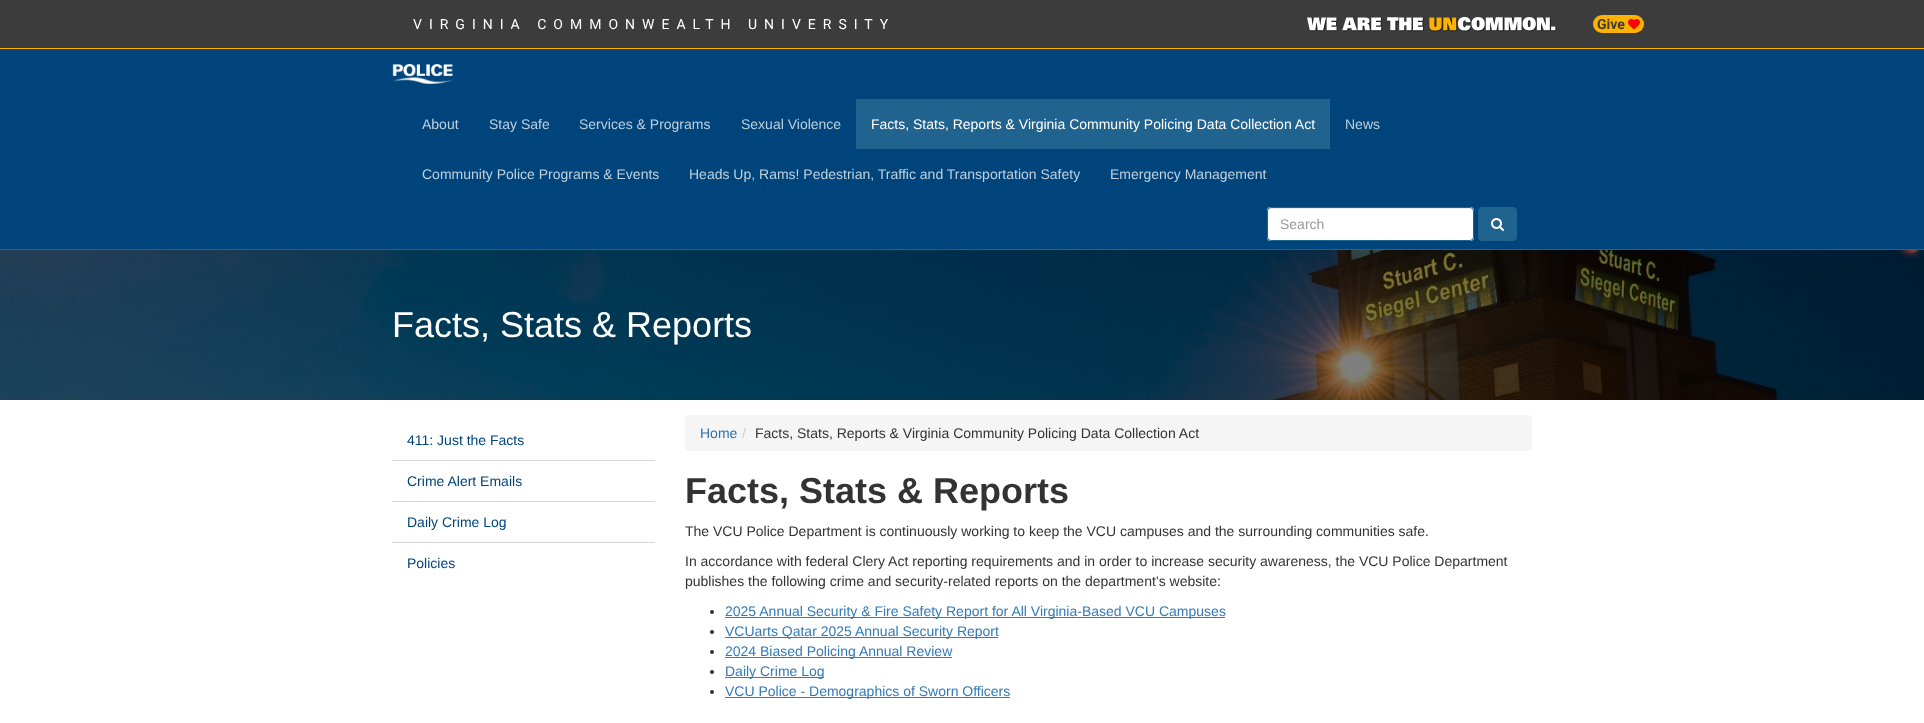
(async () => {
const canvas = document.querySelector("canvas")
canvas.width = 1924
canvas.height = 723
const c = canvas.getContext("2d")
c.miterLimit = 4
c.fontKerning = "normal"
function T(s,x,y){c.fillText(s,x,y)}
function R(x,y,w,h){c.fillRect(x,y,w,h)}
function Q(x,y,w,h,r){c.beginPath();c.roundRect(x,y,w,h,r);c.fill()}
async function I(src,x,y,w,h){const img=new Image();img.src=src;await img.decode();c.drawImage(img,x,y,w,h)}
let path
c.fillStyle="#fff"
R(0,0,1924,723)
c.fillStyle="#3c3c3c"
R(0,0,1924,48)
c.letterSpacing="7px"
c.font="14px Roboto"
c.fillStyle="#fff"
T("VIRGINIA COMMONWEALTH UNIVERSITY",413,29)
await I("1.png",1307,17,250,15)
c.fillStyle="#ffb300"
Q(1593,15,51,18,9)
c.letterSpacing="0px"
c.font="bold 14px Roboto"
c.fillStyle="#3c3c3c"
T("Give",1597,29)
await I("2.png",1628,19,12,11)
c.fillStyle="#ffb300"
R(0,48,1924,1)
c.fillStyle="#00447c"
R(0,49,1924,200)
c.fillStyle="#20638f"
R(0,249,1924,1)
await I("3.png",392,64,61,20)
c.font="14px Liberation Sans"
c.fillStyle="#bfd0de"
T("About",422,129)
T("Stay Safe",489,129)
T("Services & Programs",579,129)
T("Sexual Violence",741,129)
c.fillStyle="#20638f"
R(856,99,474,50)
c.fillStyle="#fff"
T("Facts, Stats, Reports & Virginia Community Policing Data Collection Act",871,129)
c.fillStyle="#bfd0de"
T("News",1345,129)
T("Community Police Programs & Events",422,179)
T("Heads Up, Rams! Pedestrian, Traffic and Transportation Safety",689,179)
T("Emergency Management",1110,179)
c.fillStyle="#fff"
Q(1267,207,207,34,4)
c.fillStyle="#ececec"
path = new Path2D("M1271 209h199c2 0 3 1 3 3c0-2-1-4-3-4h-199c-2 0-3 2-3 4c0-2 1-3 3-3z")
c.fill(path)
c.beginPath()
c.roundRect(1267.5,207.5,206,33,3.5)
c.strokeStyle="#20638f"
c.stroke()
c.fillStyle="#999"
T("Search",1280,229)
c.fillStyle="#20638f"
c.beginPath()
c.roundRect(1478.5,207.5,38,33,3.5)
c.fill()
c.stroke()
await I("4.png",1491,218,13,13)
await I("5.png",0,250,1924,150)
c.font="36px Liberation Sans"
c.fillStyle="#fff"
T("Facts, Stats & Reports",392,337)
c.fillStyle="#d6d6d6"
R(392,460,263,1)
c.font="14px Liberation Sans"
c.fillStyle="#00447c"
T("411: Just the Facts",407,445)
c.fillStyle="#d6d6d6"
R(392,501,263,1)
c.fillStyle="#00447c"
T("Crime Alert Emails",407,486)
c.fillStyle="#d6d6d6"
R(392,542,263,1)
c.fillStyle="#00447c"
T("Daily Crime Log",407,527)
T("Policies",407,568)
c.fillStyle="#f5f5f5"
Q(685,415,847,36,4)
c.fillStyle="#2f71aa"
T("Home",700,438)
c.fillStyle="#ccc"
T("/",742,438)
c.fillStyle="#333"
T("Facts, Stats, Reports & Virginia Community Policing Data Collection Act",755,438)
c.font="bold 36px Liberation Sans"
T("‌Facts, Stats & Reports",685,503)
c.font="14px Liberation Sans"
T("The VCU Police Department is continuously working to keep the VCU campuses and the surrounding communities safe.",685,536)
T("In accordance with federal Clery Act reporting requirements and in order to increase security awareness, the VCU Police Department",685,566)
T("publishes the following crime and security-related reports on the department’s website:",685,586)
c.beginPath()
c.arc(712,612,2,0,7)
c.fill()
c.fillStyle="#337ab7"
R(725,617,500,1)
T("2025 Annual Security & Fire Safety Report for All Virginia-Based VCU Campuses",725,616)
c.fillStyle="#333"
c.beginPath()
c.arc(712,632,2,0,7)
c.fill()
c.fillStyle="#337ab7"
R(725,637,273,1)
T("VCUarts Qatar 2025 Annual Security Report",725,636)
c.fillStyle="#333"
c.beginPath()
c.arc(712,652,2,0,7)
c.fill()
c.fillStyle="#337ab7"
R(725,657,227,1)
T("2024 Biased Policing Annual Review",725,656)
c.fillStyle="#333"
c.beginPath()
c.arc(712,672,2,0,7)
c.fill()
c.fillStyle="#337ab7"
R(725,677,99,1)
T("Daily Crime Log",725,676)
c.fillStyle="#333"
c.beginPath()
c.arc(712,692,2,0,7)
c.fill()
c.fillStyle="#337ab7"
R(725,697,285,1)
T("VCU Police - Demographics of Sworn Officers",725,696)
})()
